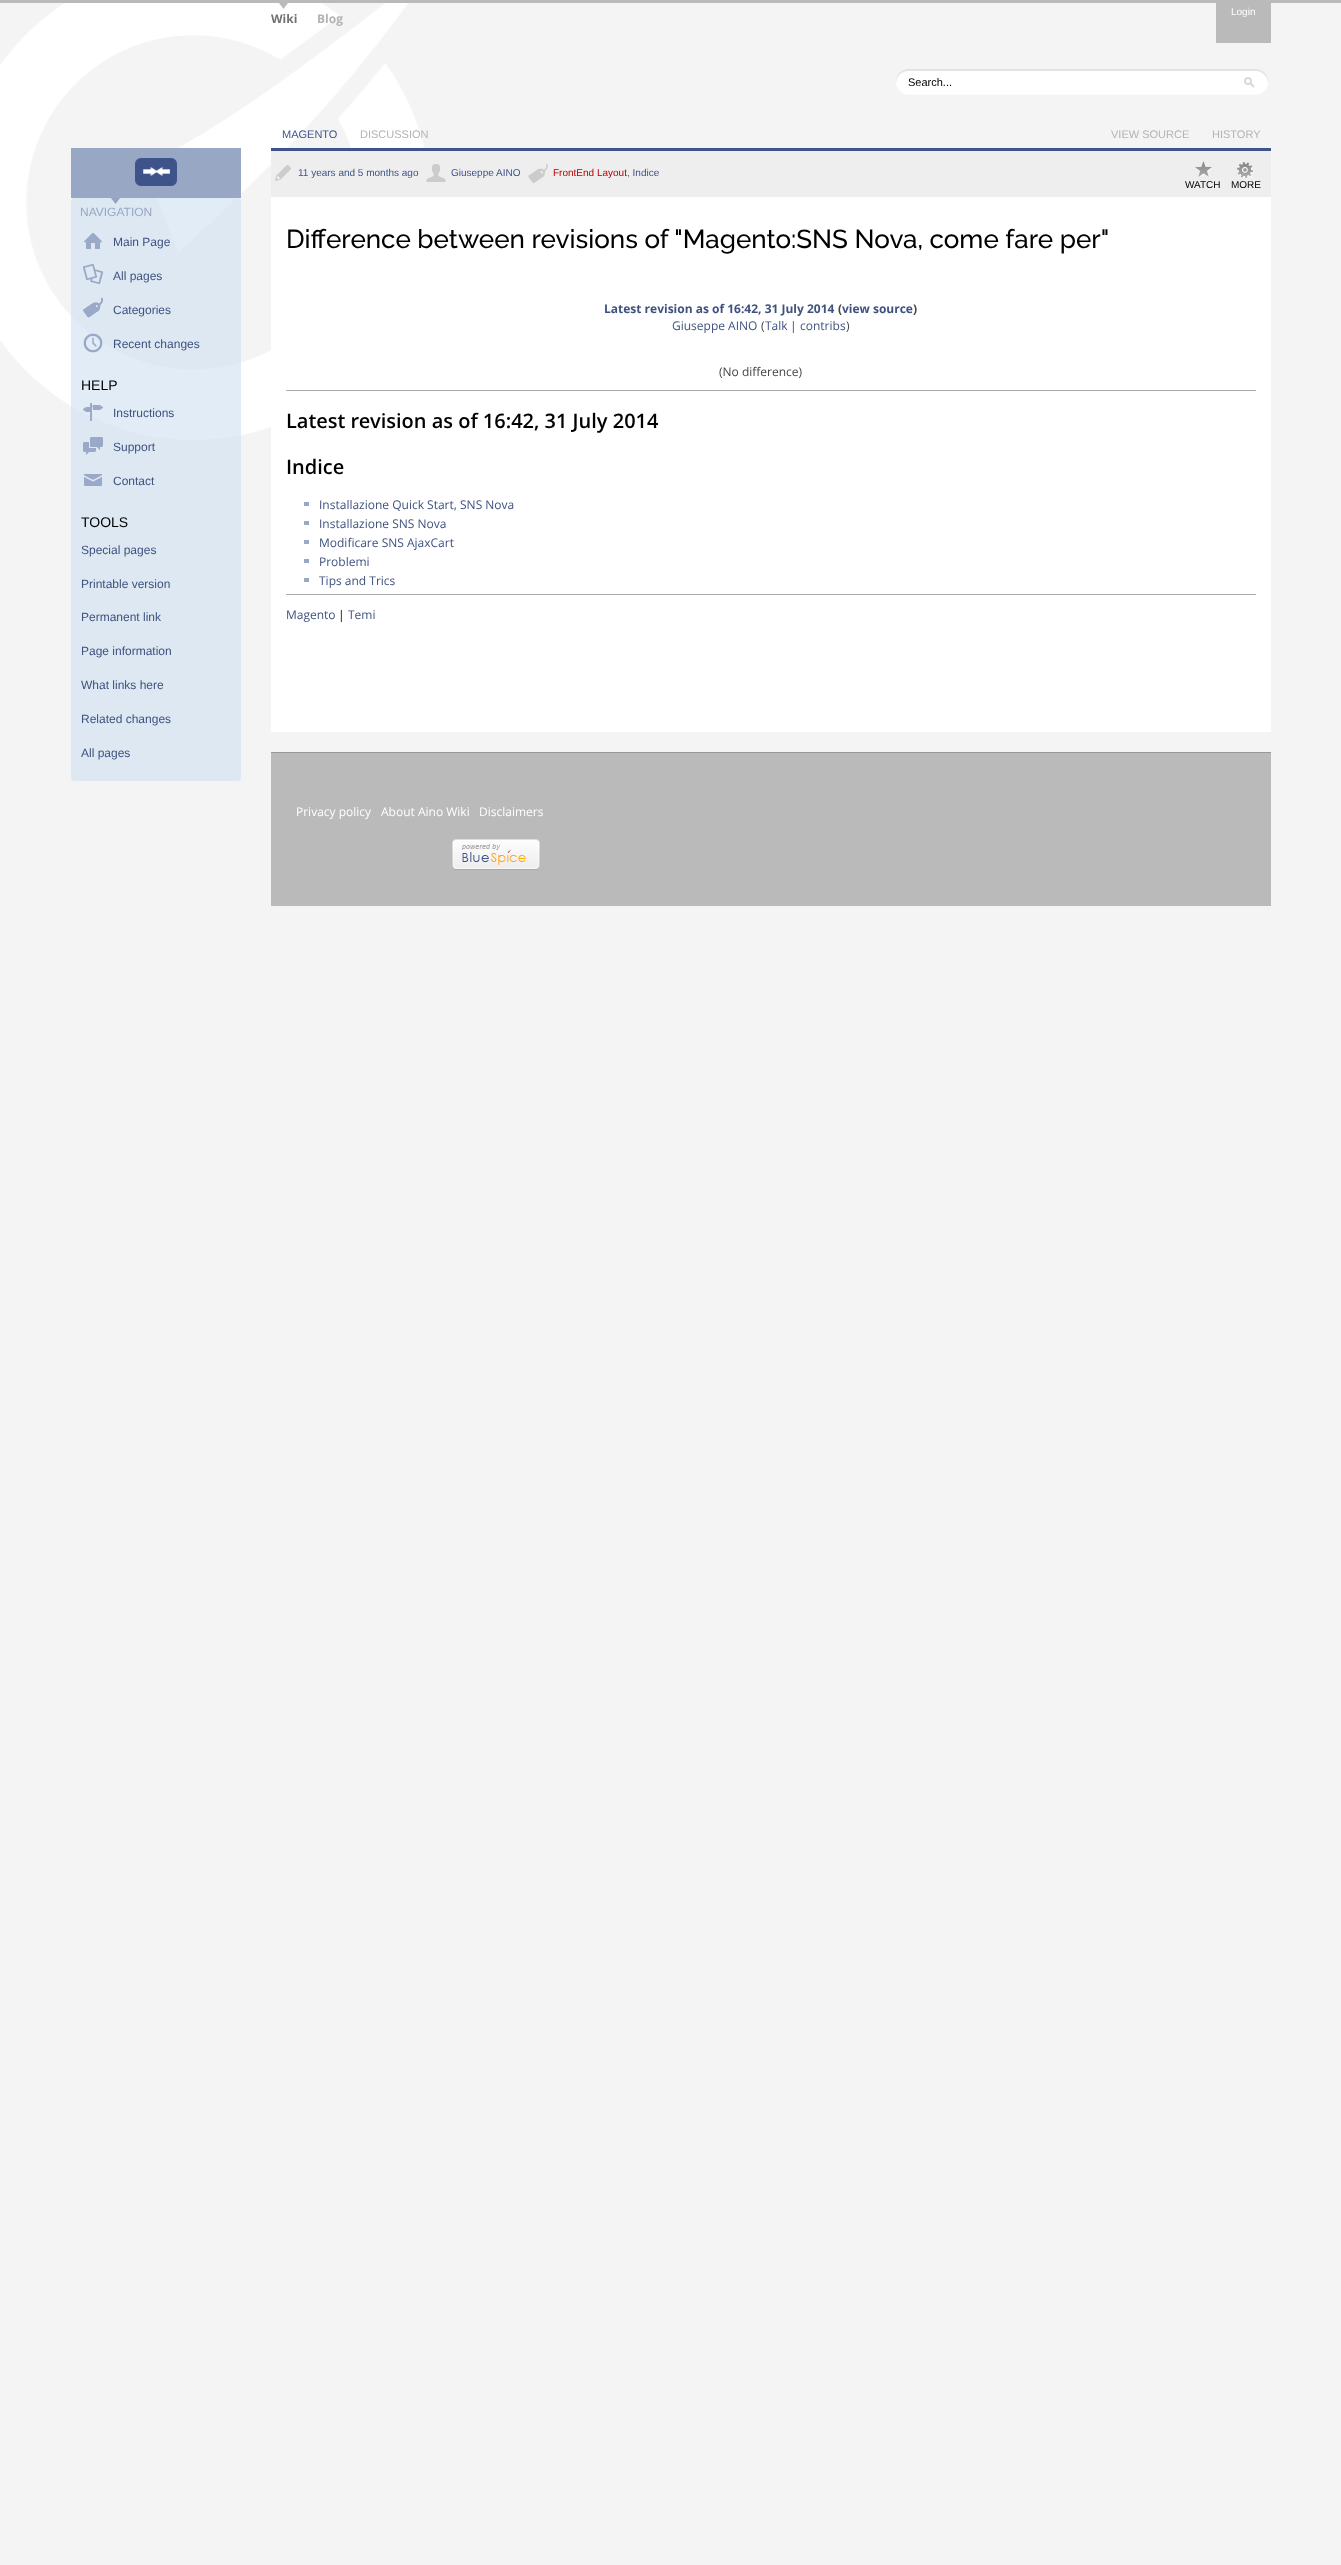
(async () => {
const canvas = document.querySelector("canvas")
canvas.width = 1341
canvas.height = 2565
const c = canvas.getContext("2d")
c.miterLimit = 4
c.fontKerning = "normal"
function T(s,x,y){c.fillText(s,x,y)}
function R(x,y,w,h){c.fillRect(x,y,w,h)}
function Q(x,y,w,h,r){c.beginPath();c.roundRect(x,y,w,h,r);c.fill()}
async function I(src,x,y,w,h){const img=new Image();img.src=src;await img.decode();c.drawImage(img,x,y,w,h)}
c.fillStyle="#f4f4f4"
R(0,0,1341,2565)
await I("1.png",0,3,431,437)
c.fillStyle="#bababa"
R(0,0,1341,3)
await I("2.png",279,3,9,6)
c.font="bold 12px Open Sans"
c.fillStyle="#717171"
T("Wiki",271,23)
c.fillStyle="#b4b3b3"
T("Blog",317,23)
c.fillStyle="#bababa"
R(1216,3,55,40)
c.font="10px Liberation Sans"
c.fillStyle="#fff"
T("Login",1231,15)
await I("3.png",896,69,372,26)
c.font="11px Liberation Sans"
c.fillStyle="#000"
T("Search...",908,86)
c.fillStyle="#98a7c4"
R(71,148,170,50)
await I("4.png",135,158,42,28)
c.fillStyle="#cddff299"
Q(71,198,170,583,4)
await I("5.png",111,198,9,6)
c.font="12px Liberation Sans"
c.fillStyle="#98a7c4"
T("NAVIGATION",80,216)
await I("6.png",84,233,18,16)
c.fillStyle="#3f527f"
T("Main Page",113,246)
await I("7.png",83,264,20,20)
T("All pages",113,280)
await I("8.png",83,297,20,21)
T("Categories",113,314)
await I("9.png",83,333,20,20)
T("Recent changes",113,348)
c.font="14px Liberation Sans"
c.fillStyle="#000"
T("HELP",81,390)
await I("10.png",83,403,20,18)
c.font="12px Liberation Sans"
c.fillStyle="#3f527f"
T("Instructions",113,417)
await I("11.png",83,437,20,18)
T("Support",113,451)
await I("12.png",84,474,18,12)
T("Contact",113,485)
c.font="14px Liberation Sans"
c.fillStyle="#000"
T("TOOLS",81,527)
c.font="12px Liberation Sans"
c.fillStyle="#3f527f"
T("Special pages",81,554)
T("Printable version",81,588)
T("Permanent link",81,621)
T("Page information",81,655)
T("What links here",81,689)
T("Related changes",81,723)
T("All pages",81,757)
c.font="11px Liberation Sans"
c.fillStyle="#3e5389"
T("MAGENTO",282,138)
c.fillStyle="#b4b3b3"
T("DISCUSSION",360,138)
T("VIEW SOURCE",1111,138)
T("HISTORY",1212,138)
c.fillStyle="#eee"
R(271,151,1000,46)
c.fillStyle="#3e5389"
R(271,148,1000,3)
await I("13.png",275,165,16,16)
c.font="10px Liberation Sans"
T("11 years and 5 months ago",298,176)
await I("14.png",426,164,20,18)
T("Giuseppe AINO",451,176)
await I("15.png",528,164,20,20)
c.fillStyle="#ba0000"
T("FrontEnd Layout",553,176)
c.fillStyle="#3e5389"
T(", Indice",627,176)
await I("16.png",1195,161,17,16)
c.fillStyle="#000"
T("WATCH",1185,188)
await I("17.png",1237,162,17,17)
T("MORE",1231,188)
c.fillStyle="#fff"
R(271,197,1000,535)
c.font="500 26px Raleway"
c.fillStyle="#000"
T("Difference between revisions of \"Magento:SNS Nova, come fare per\"",286,248)
c.font="bold 12px Open Sans"
c.fillStyle="#3f527f"
T("Latest revision as of 16:42, 31 July 2014",604,313)
c.fillStyle="#444"
T("(",838,313)
c.fillStyle="#3f527f"
T("view source",842,313)
c.fillStyle="#444"
T(")",913,313)
c.font="12px Open Sans"
c.fillStyle="#3f527f"
T("Giuseppe AINO",672,330)
c.fillStyle="#444"
T("(",761,330)
c.fillStyle="#3f527f"
T("Talk",765,330)
c.fillStyle="#444"
T("|",790,330)
c.fillStyle="#3f527f"
T("contribs",800,330)
c.fillStyle="#444"
T(")",846,330)
T("(No difference)",719,376)
c.fillStyle="#aaa"
R(286,390,970,1)
c.font="600 20px Open Sans"
c.fillStyle="#000"
T("Latest revision as of 16:42, 31 July 2014",286,428)
T("Indice",286,474)
c.fillStyle="#96aac8"
R(304,502,5,4)
c.font="12px Open Sans"
c.fillStyle="#3f527f"
T("Installazione Quick Start, SNS Nova",319,509)
c.fillStyle="#96aac8"
R(304,521,5,4)
c.fillStyle="#3f527f"
T("Installazione SNS Nova",319,528)
c.fillStyle="#96aac8"
R(304,540,5,4)
c.fillStyle="#3f527f"
T("Modificare SNS AjaxCart",319,547)
c.fillStyle="#96aac8"
R(304,559,5,4)
c.fillStyle="#3f527f"
T("Problemi",319,566)
c.fillStyle="#96aac8"
R(304,578,5,4)
c.fillStyle="#3f527f"
T("Tips and Trics",319,585)
c.fillStyle="#aaa"
R(286,594,970,1)
c.fillStyle="#3f527f"
T("Magento",286,619)
c.fillStyle="#000"
T("|",338,619)
c.fillStyle="#3f527f"
T("Temi",348,619)
c.fillStyle="#bababa"
R(271,753,1000,153)
c.fillStyle="#989898"
R(271,752,1000,1)
c.fillStyle="#fff"
T("Privacy policy",296,816)
T("About Aino Wiki",381,816)
T("Disclaimers",479,816)
await I("18.png",452,839,88,31)
})()
